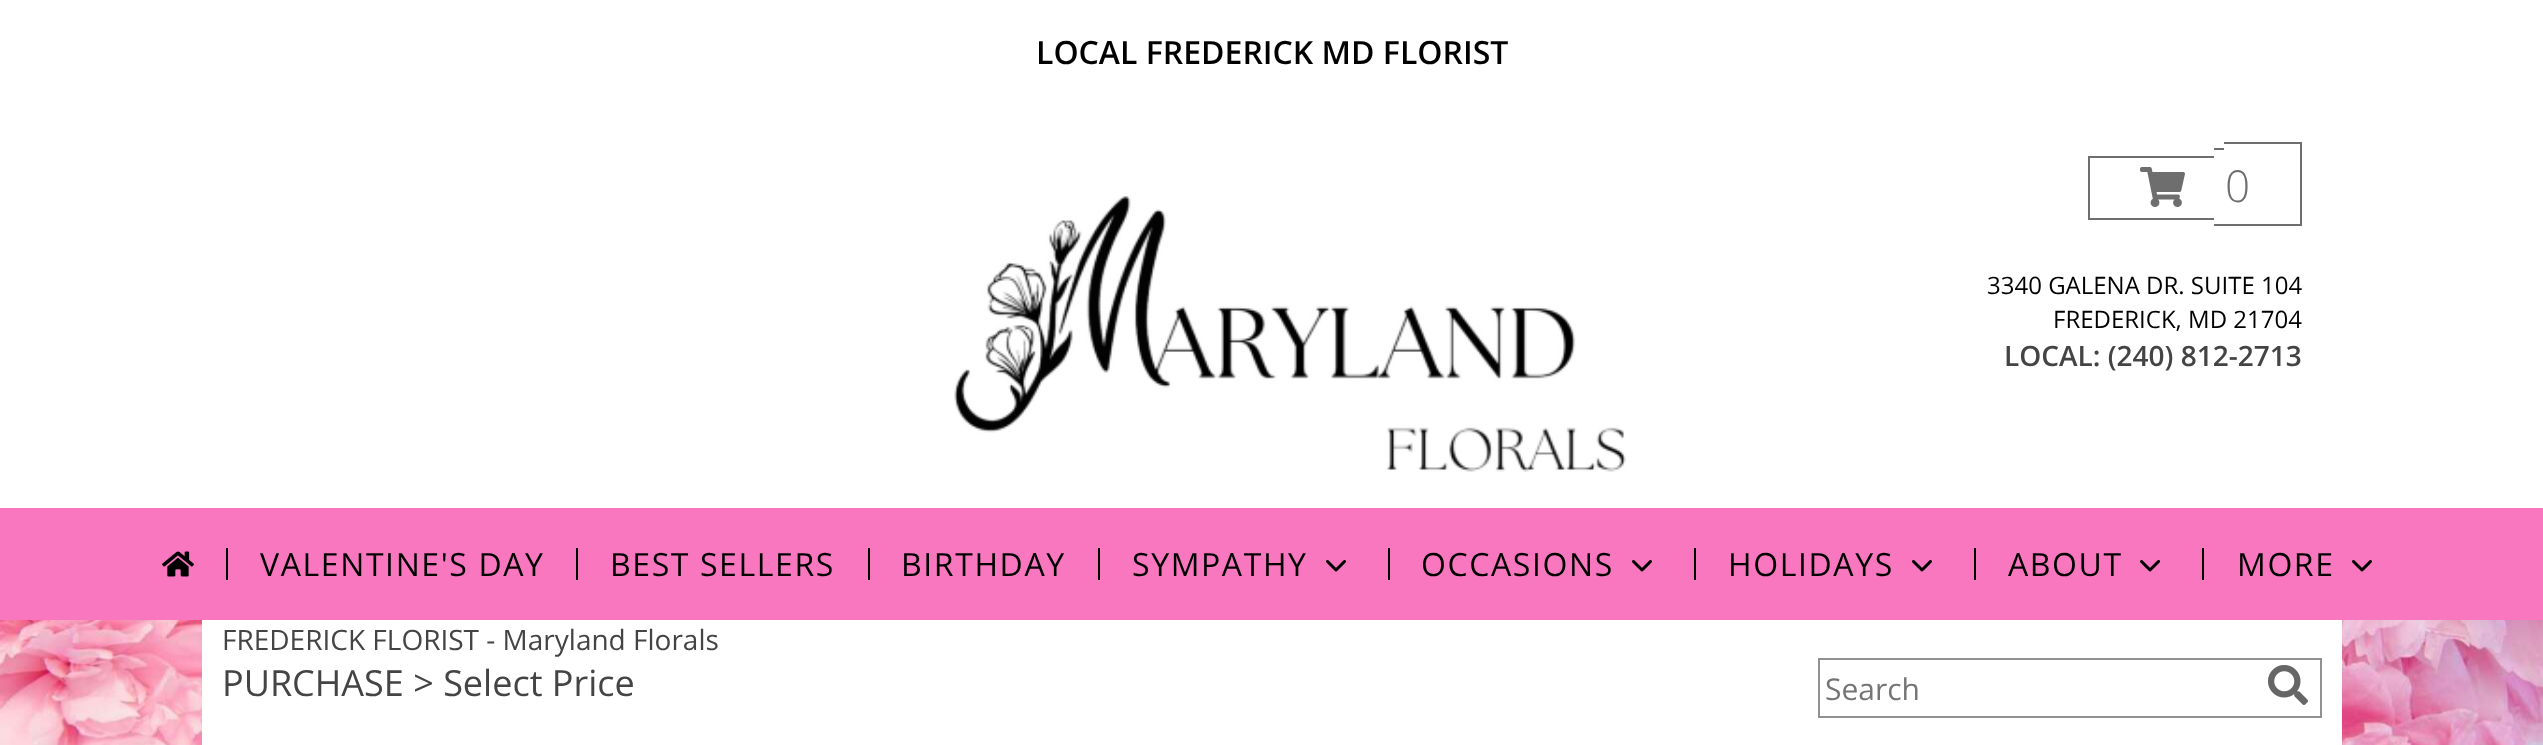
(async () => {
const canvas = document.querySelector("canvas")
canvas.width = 2543
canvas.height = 745
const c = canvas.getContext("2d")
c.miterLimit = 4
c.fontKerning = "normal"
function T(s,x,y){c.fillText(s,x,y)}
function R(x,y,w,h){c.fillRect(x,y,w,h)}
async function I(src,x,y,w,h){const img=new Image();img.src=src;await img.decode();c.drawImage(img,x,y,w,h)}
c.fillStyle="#fff"
R(0,0,2543,745)
await I("1.png",0,620,2543,125)
R(202,620,2140,125)
c.font="600 32px Open Sans"
c.fillStyle="#000"
T("LOCAL FREDERICK MD FLORIST",1036,64)
await I("2.png",954,196,672,276)
c.fillStyle="#6e6e6e"
R(2088,156,126,2)
R(2088,218,126,2)
R(2088,156,2,64)
R(2214,148,10,2)
R(2214,224,10,2)
R(2224,142,78,2)
R(2300,142,2,84)
R(2224,224,78,2)
await I("3.png",2140,167,45,40)
c.font="300 44px Open Sans"
T("0",2225,202)
c.font="24px Open Sans"
c.fillStyle="#000"
T("3340 GALENA DR. SUITE 104",1987,294)
T("FREDERICK, MD 21704",2053,328)
c.font="600 28px Open Sans"
c.fillStyle="#444"
T("LOCAL: (240) 812-2713",2004,366)
c.fillStyle="#f877bf"
R(0,508,2543,112)
await I("4.png",162,551,32,26)
c.fillStyle="#000"
R(226,548,2,32)
c.letterSpacing="1.6px"
c.font="32px Open Sans"
T("VALENTINE'S DAY",260,576)
R(576,548,2,32)
T("BEST SELLERS",610,576)
R(868,548,2,32)
T("BIRTHDAY",901,576)
R(1098,548,2,32)
T("SYMPATHY",1132,576)
await I("5.png",1326,560,20,12)
R(1388,548,2,32)
T("OCCASIONS",1421,576)
await I("5.png",1632,560,20,12)
R(1694,548,2,32)
T("HOLIDAYS",1728,576)
await I("5.png",1912,560,20,12)
R(1974,548,2,32)
T("ABOUT",2008,576)
await I("5.png",2140,560,20,12)
R(2202,548,2,32)
T("MORE",2237,576)
await I("5.png",2352,560,20,12)
c.letterSpacing="0px"
c.font="28px Open Sans"
c.fillStyle="#444"
T("FREDERICK FLORIST - Maryland Florals",222,650)
c.font="36px Open Sans"
T("PURCHASE > Select Price",222,696)
c.strokeStyle="#919191"
c.lineWidth=2
c.strokeRect(1819,659,502,58)
c.font="30px Open Sans"
c.fillStyle="#757575"
T("Search",1825,700)
await I("6.png",2268,665,40,40)
})()
